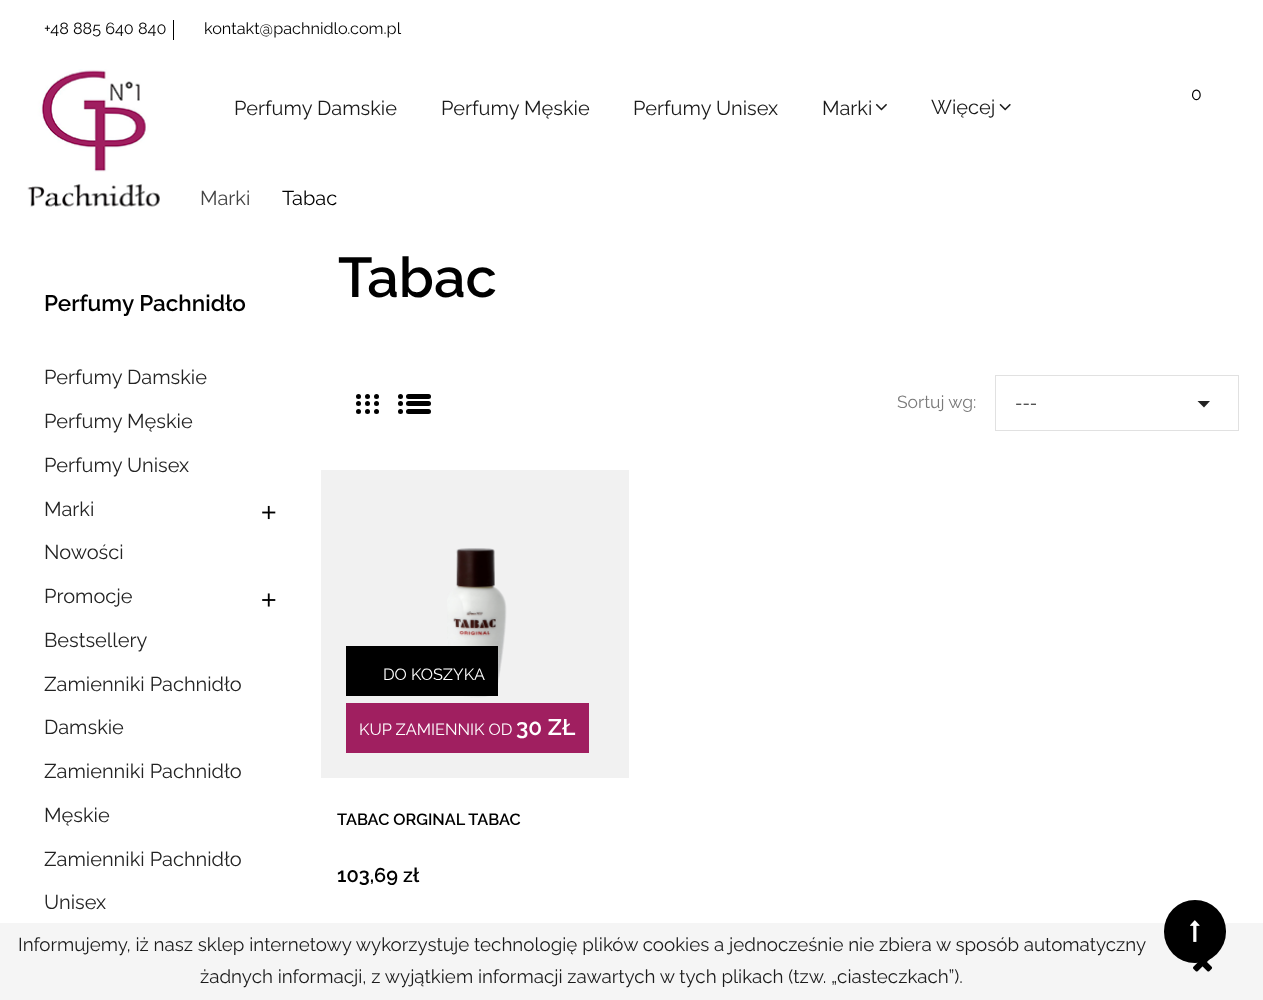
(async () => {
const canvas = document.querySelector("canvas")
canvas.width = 1263
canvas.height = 1000
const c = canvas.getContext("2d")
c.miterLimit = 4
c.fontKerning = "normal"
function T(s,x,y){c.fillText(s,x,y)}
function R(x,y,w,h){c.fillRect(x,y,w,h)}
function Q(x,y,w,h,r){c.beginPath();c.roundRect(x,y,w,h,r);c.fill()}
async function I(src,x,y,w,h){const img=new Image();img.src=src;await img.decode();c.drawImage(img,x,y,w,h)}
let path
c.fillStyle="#fff"
R(0,0,1263,1000)
c.font="16.25px Raleway"
c.fillStyle="#000"
T("+48 885 640 840",44,34)
R(173,20,1,20)
T("kontakt@pachnidlo.com.pl",204,34)
await I("1.png",27,69,141,141)
c.font="17.5px Raleway"
T("0",1191,100)
c.font="20px Raleway"
c.fillStyle="#1a1a1a"
T("Perfumy Damskie",234,115)
T("Perfumy Męskie",441,115)
T("Perfumy Unisex",633,115)
T("Marki",822,115)
await I("2.png",875,103,12,8)
T("Więcej",931,114)
await I("3.png",999,103,12,8)
c.fillStyle="#444"
T("Marki",200,205)
c.fillStyle="#000"
T("Tabac",282,205)
c.font="600 22.5px Raleway"
T("Perfumy Pachnidło",44,311)
c.font="20px Raleway"
c.fillStyle="#232323"
T("Perfumy Damskie",44,384)
T("Perfumy Męskie",44,428)
T("Perfumy Unisex",44,472)
T("Marki",44,516)
await I("4.png",262,505,14,15)
T("Nowości",44,559)
T("Promocje",44,603)
await I("5.png",262,593,14,14)
T("Bestsellery",44,647)
T("Zamienniki Pachnidło",44,691)
T("Damskie",44,734)
T("Zamienniki Pachnidło",44,778)
T("Męskie",44,822)
T("Zamienniki Pachnidło",44,866)
T("Unisex",44,909)
c.font="600 56px Raleway"
c.fillStyle="#000"
T("Tabac",338,297)
c.beginPath()
c.arc(358.5,396.5,2.5,0,7)
c.fill()
c.beginPath()
c.arc(367.5,396.5,2.5,0,7)
c.fill()
c.beginPath()
c.arc(376.5,396.5,2.5,0,7)
c.fill()
c.beginPath()
c.arc(358.5,403.5,2.5,0,7)
c.fill()
c.beginPath()
c.arc(367.5,403.5,2.5,0,7)
c.fill()
c.beginPath()
c.arc(376.5,403.5,2.5,0,7)
c.fill()
c.beginPath()
c.arc(358.5,411.5,2.5,0,7)
c.fill()
c.beginPath()
c.arc(367.5,411.5,2.5,0,7)
c.fill()
c.beginPath()
c.arc(376.5,411.5,2.5,0,7)
c.fill()
c.beginPath()
c.arc(400.5,396.5,2.5,0,7)
c.fill()
Q(406,394,25,5,2.5)
c.beginPath()
c.arc(400.5,403.5,2.5,0,7)
c.fill()
Q(406,401,25,5,2.5)
c.beginPath()
c.arc(400.5,411.5,2.5,0,7)
c.fill()
Q(406,409,25,5,2.5)
c.font="17.5px Raleway"
c.fillStyle="#7a7a7a"
T("Sortuj wg:",897,408)
c.strokeStyle="#e1e1e1"
c.strokeRect(995.5,375.5,243,55)
c.fillStyle="#232323"
T("---",1015,409)
path = new Path2D("M1197.5 401h12.5l-6 6.5z")
c.fill(path)
c.fillStyle="#f1f1f1"
R(321,470,308,308)
await I("6.png",447,548,60,150)
c.fillStyle="#000"
R(346,646,152,50)
c.font="16.25px Raleway"
c.fillStyle="#fff"
T("DO KOSZYKA",383,680)
c.fillStyle="#a01f60"
R(346,703,243,50)
c.fillStyle="#fff"
T("KUP ZAMIENNIK OD",359,735)
c.font="600 22.5px Raleway"
T("30 ZŁ",516,735)
c.font="600 16.25px Raleway"
c.fillStyle="#000"
T("TABAC ORGINAL TABAC",337,825)
c.font="600 20px Raleway"
T("103,69 zł",337,882)
c.fillStyle="#f5f5f5"
R(0,923,1263,77)
c.font="18.75px Raleway"
c.fillStyle="#1a1a1a"
T("Informujemy, iż nasz sklep internetowy wykorzystuje technologię plików cookies a jednocześnie nie zbiera w sposób automatyczny",18,951)
T("żadnych informacji, z wyjątkiem informacji zawartych w tych plikach (tzw. „ciasteczkach”).",200,983)
await I("7.png",1193,957,20,15)
c.fillStyle="#000"
Q(1164,900,62,63,31)
await I("8.png",1190,920,10,22)
})()
